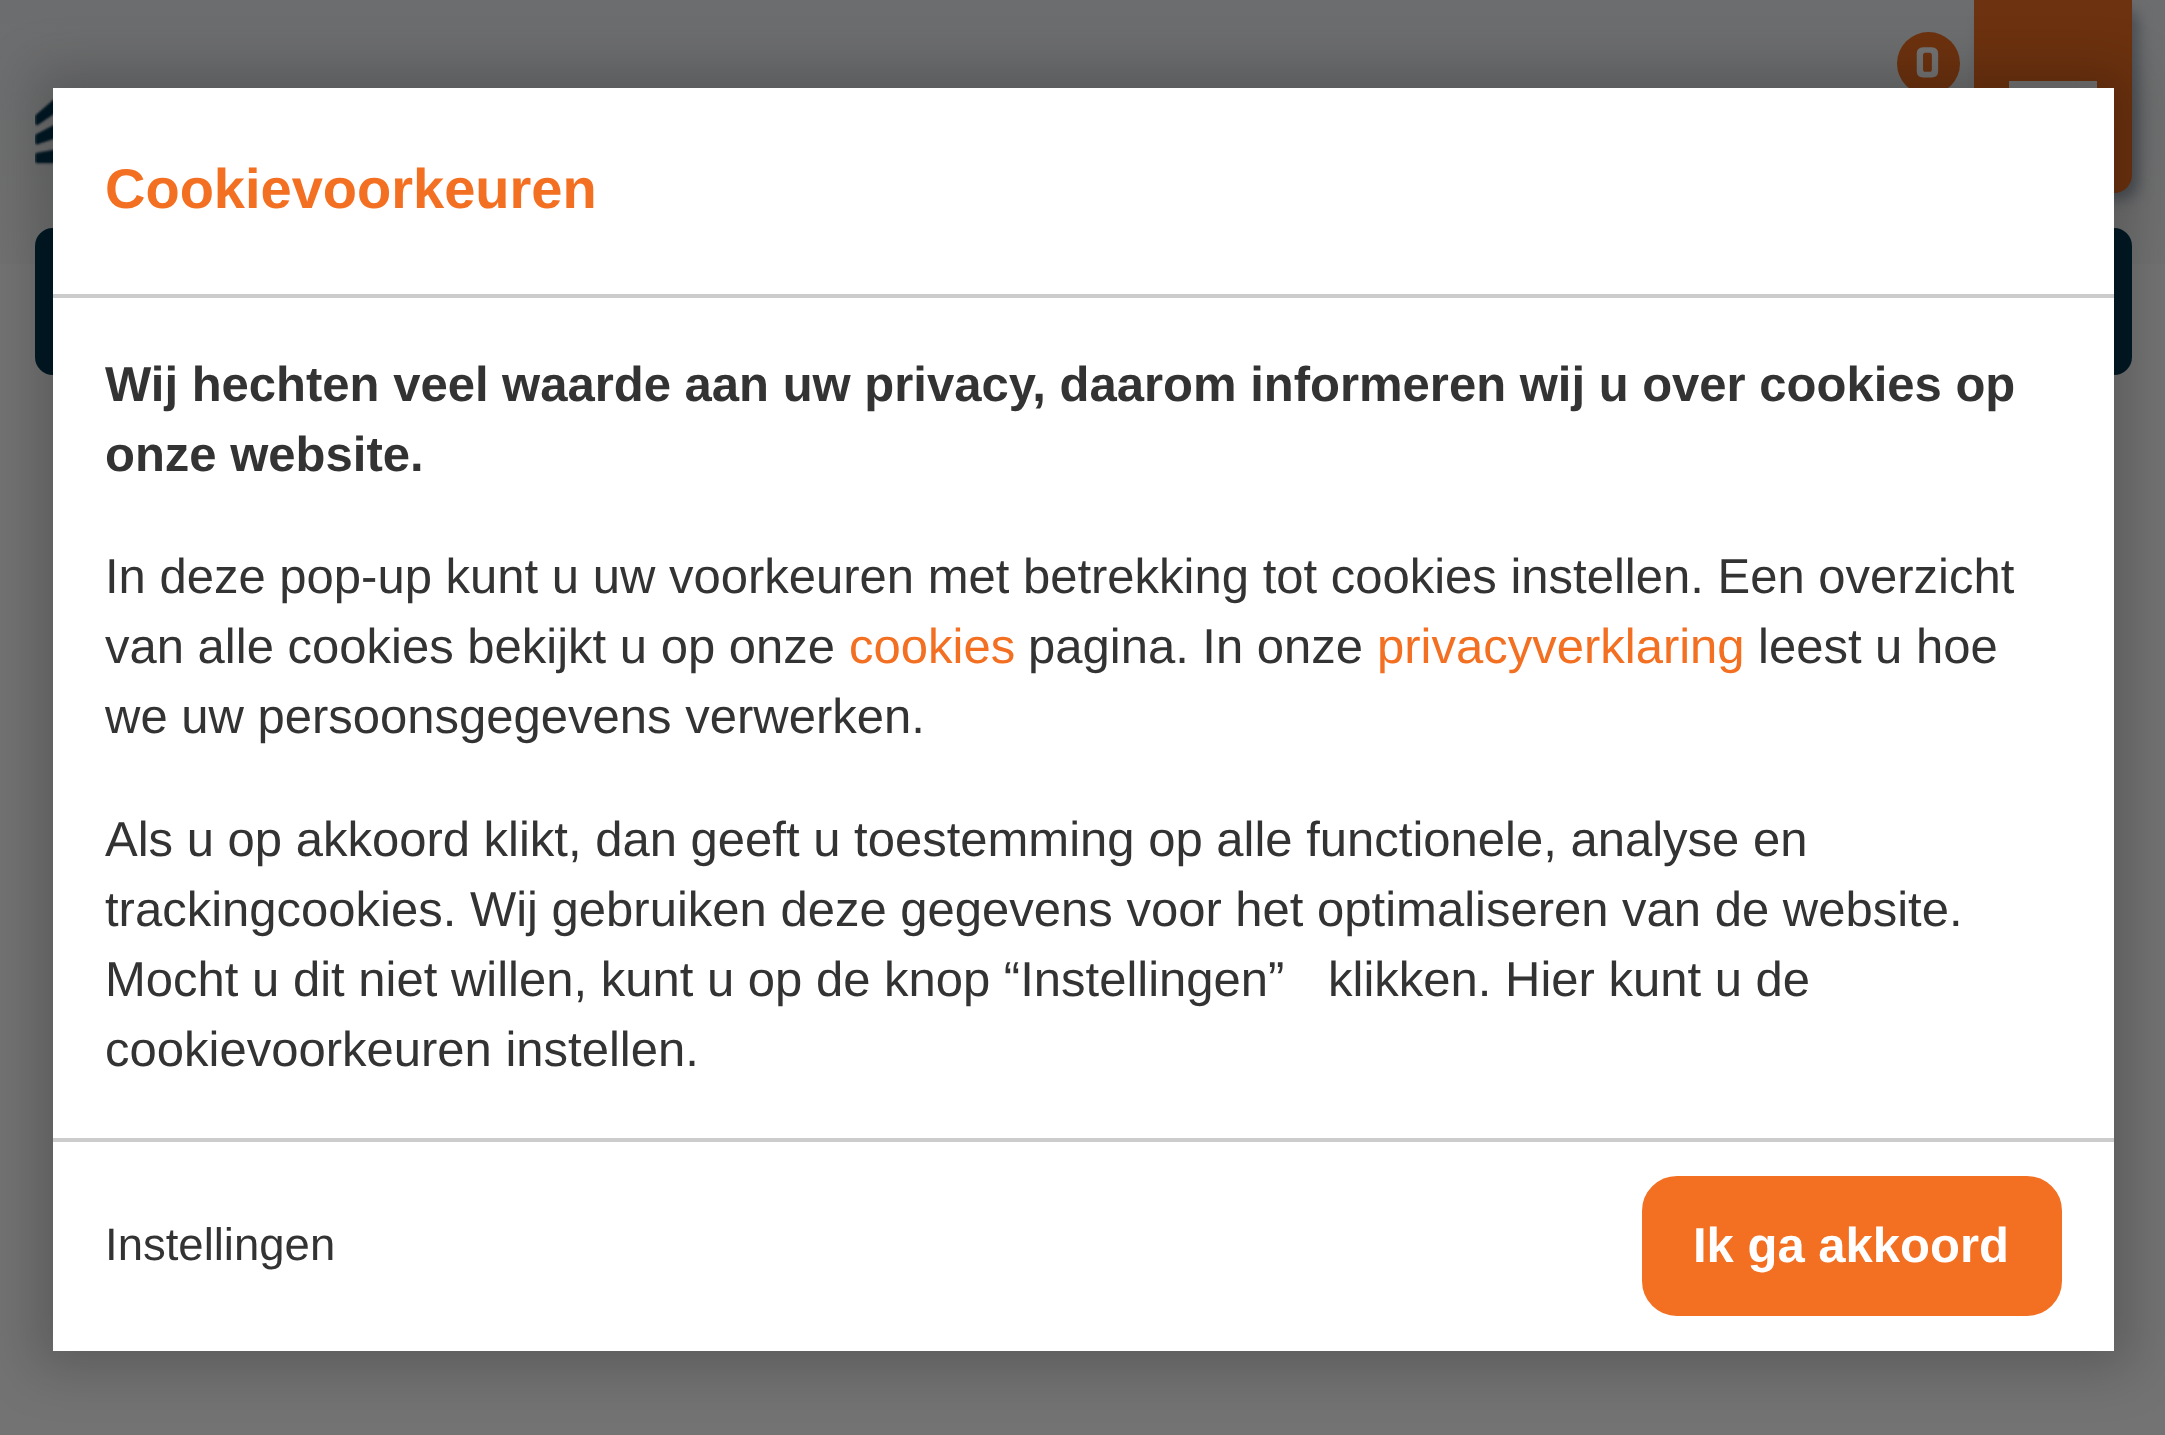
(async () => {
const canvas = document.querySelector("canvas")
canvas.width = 2165
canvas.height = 1435
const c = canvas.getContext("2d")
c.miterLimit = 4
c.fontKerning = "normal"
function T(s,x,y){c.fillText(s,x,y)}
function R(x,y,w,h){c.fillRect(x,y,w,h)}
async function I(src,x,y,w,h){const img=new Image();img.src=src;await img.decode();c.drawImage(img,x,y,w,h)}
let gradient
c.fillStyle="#737373"
R(0,0,2165,1435)
gradient = c.createLinearGradient(1083,0,1083,410)
gradient.addColorStop(0,"#6c6d6e")
gradient.addColorStop(1,"#737373")
c.fillStyle = gradient
R(0,0,2165,264)
c.fillStyle="#6d320f"
c.beginPath()
c.arc(1928.5,63.5,31.5,0,7)
c.fill()
c.font="bold 42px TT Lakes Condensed"
c.fillStyle="#737373"
T("0",1914,77)
c.fillStyle="#4b4f53"
c.filter="blur(7px)"
c.beginPath()
c.roundRect(1981,7,158,193,18)
c.fill()
c.filter="none"
c.fillStyle="#6d320f"
c.beginPath()
c.roundRect(1976,2,154,189,[0,0,16,16])
c.fill()
c.strokeStyle="#6d320f"
c.lineWidth=4
c.stroke()
c.fillStyle="#737373"
R(2009,81,88,7)
await I("1.png",35,98,18,68)
c.fillStyle="#001924"
c.beginPath()
c.roundRect(37,230,2093,143,16)
c.fill()
c.strokeStyle="#001924"
c.stroke()
c.fillStyle="#00000033"
c.filter="blur(26px)"
c.beginPath()
c.rect(35,70,2097,1299)
c.fill()
c.filter="none"
c.fillStyle="#fff"
R(53,88,2061,1263)
c.fillStyle="#ccc"
R(53,294,2061,4)
c.font="bold 56px Liberation Sans"
c.fillStyle="#f36f21"
T("Cookievoorkeuren",105,208)
c.font="bold 49px Liberation Sans"
c.fillStyle="#333"
T("Wij hechten veel waarde aan uw privacy, daarom informeren wij u over cookies op",105,401)
T("onze website.",105,471)
c.font="49px Liberation Sans"
T("In deze pop-up kunt u uw voorkeuren met betrekking tot cookies instellen. Een overzicht",105,593)
T("van alle cookies bekijkt u op onze",105,663)
c.fillStyle="#f36f21"
T("cookies",849,663)
c.fillStyle="#333"
T("pagina. In onze",1028,663)
c.fillStyle="#f36f21"
T("privacyverklaring",1377,663)
c.fillStyle="#333"
T("leest u hoe",1758,663)
T("we uw persoonsgegevens verwerken.",105,733)
T("Als u op akkoord klikt, dan geeft u toestemming op alle functionele, analyse en",105,856)
T("trackingcookies. Wij gebruiken deze gegevens voor het optimaliseren van de website.",105,926)
T("Mocht u dit niet willen, kunt u op de knop “Instellingen”",105,996)
T("klikken. Hier kunt u de",1328,996)
T("cookievoorkeuren instellen.",105,1066)
c.fillStyle="#ccc"
R(53,1138,2061,4)
c.font="45.5px Liberation Sans"
c.fillStyle="#333"
T("Instellingen",105,1260)
c.fillStyle="#f36f21"
c.beginPath()
c.roundRect(1644,1178,416,136,33)
c.fill()
c.strokeStyle="#f36f21"
c.stroke()
c.font="bold 49px Liberation Sans"
c.fillStyle="#fff"
T("Ik ga akkoord",1693,1262)
})()
